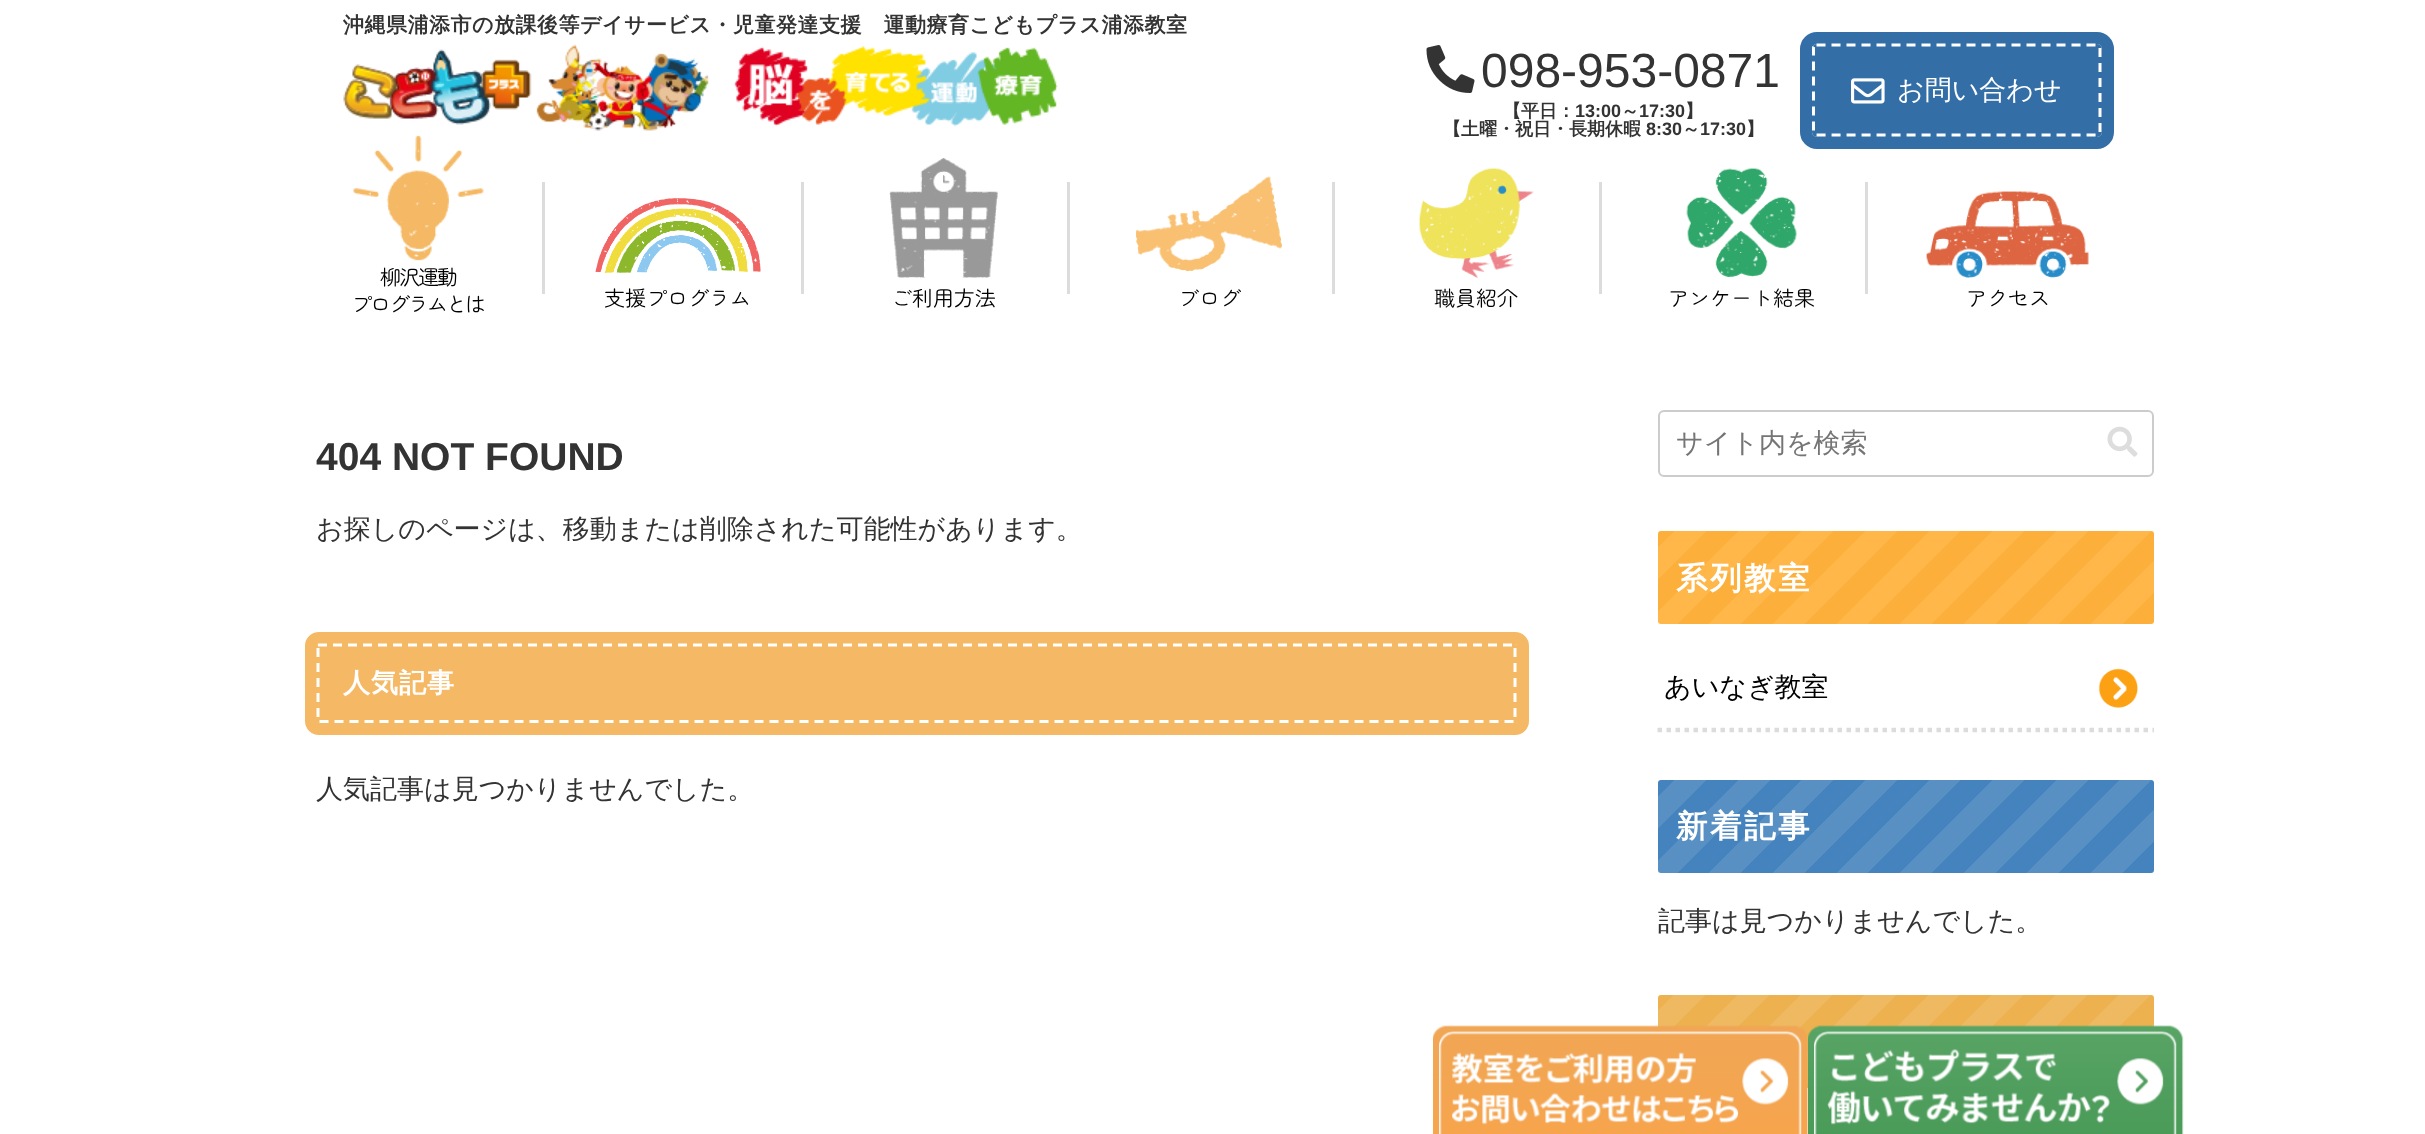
(async () => {
const canvas = document.querySelector("canvas")
canvas.width = 2425
canvas.height = 1134
const c = canvas.getContext("2d")
c.miterLimit = 4
c.fontKerning = "normal"
function T(s,x,y){c.fillText(s,x,y)}
function R(x,y,w,h){c.fillRect(x,y,w,h)}
function Q(x,y,w,h,r){c.beginPath();c.roundRect(x,y,w,h,r);c.fill()}
async function I(src,x,y,w,h){const img=new Image();img.src=src;await img.decode();c.drawImage(img,x,y,w,h)}
let gradient, path
c.fillStyle="#fff"
R(0,0,2425,1134)
c.letterSpacing="0.5px"
c.font="bold 21px WenQuanYi Zen Hei"
c.fillStyle="#333"
T("沖縄県浦添市の放課後等デイサービス・児童発達支援　運動療育こどもプラス浦添教室",343,32)
await I("1.png",343,44,715,87)
await I("2.png",1426,45,49,48)
c.letterSpacing="0px"
c.font="48px Liberation Sans"
T("098-953-0871",1481,87)
c.font="bold 18px WenQuanYi Zen Hei"
T("【平日：",1503,117)
c.font="bold 18px Liberation Sans"
T("13:00",1575,117)
c.font="bold 18px WenQuanYi Zen Hei"
T("～",1621,117)
c.font="bold 18px Liberation Sans"
T("17:30",1639,117)
c.font="bold 18px WenQuanYi Zen Hei"
T("】",1685,117)
T("【土曜・祝日・長期休暇",1443,135)
c.font="bold 18px Liberation Sans"
T("8:30",1646,135)
c.font="bold 18px WenQuanYi Zen Hei"
T("～",1682,135)
c.font="bold 18px Liberation Sans"
T("17:30",1700,135)
c.font="bold 18px WenQuanYi Zen Hei"
T("】",1746,135)
c.beginPath()
c.roundRect(1806,38,302,105,11)
c.strokeStyle="#336ea7"
c.lineWidth=12
c.stroke()
c.fillStyle="#336ea7"
Q(1812,44,290,93,5)
path = new Path2D("M1816.5 45h280.5c1.5 0 3 1.5 3 3v84c0 1.5-1.5 3-3 3h-280.5c-1.5 0-3-1.5-3-3v-84c0-1.5 1.5-3 3-3z")
c.strokeStyle="#fff"
c.lineWidth=3
c.setLineDash([9,6])
c.stroke(path)
await I("3.png",1851,78,34,26)
c.font="500 27px WenQuanYi Zen Hei"
c.fillStyle="#fff"
T("お問い合わせ",1897,99)
await I("4.png",353,135,131,126)
c.letterSpacing="-2px"
c.font="21px Zen Maru Gothic"
c.fillStyle="#000"
T("柳沢運動",380,285)
T("プログラムとは",351,312)
c.fillStyle="#dcdcdc"
R(542,182,3,112)
R(801,182,3,112)
await I("5.png",595,198,166,75)
c.letterSpacing="0px"
c.fillStyle="#000"
T("支援プログラム",604,306)
c.fillStyle="#dcdcdc"
R(1067,182,3,112)
await I("6.png",889,158,109,120)
c.fillStyle="#000"
T("ご利用方法",891,306)
c.fillStyle="#dcdcdc"
R(1332,182,3,112)
await I("7.png",1136,176,146,96)
c.fillStyle="#000"
T("ブログ",1178,306)
c.fillStyle="#dcdcdc"
R(1599,182,3,112)
await I("8.png",1419,168,115,110)
c.fillStyle="#000"
T("職員紹介",1434,306)
c.fillStyle="#dcdcdc"
R(1865,182,3,112)
await I("9.png",1686,168,111,109)
c.fillStyle="#000"
T("アンケート結果",1668,306)
await I("10.png",1926,191,163,87)
T("アクセス",1966,306)
gradient = c.createLinearGradient(2053,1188,1735,870)
gradient.addColorStop(0,"#edb150")
gradient.addColorStop(.05,"#edb150")
gradient.addColorStop(.05,"#efb962")
gradient.addColorStop(.1,"#efb962")
gradient.addColorStop(.1,"#edb150")
gradient.addColorStop(.15,"#edb150")
gradient.addColorStop(.15,"#efb962")
gradient.addColorStop(.2,"#efb962")
gradient.addColorStop(.2,"#edb150")
gradient.addColorStop(.25,"#edb150")
gradient.addColorStop(.25,"#efb962")
gradient.addColorStop(.3,"#efb962")
gradient.addColorStop(.3,"#edb150")
gradient.addColorStop(.35,"#edb150")
gradient.addColorStop(.35,"#efb962")
gradient.addColorStop(.4,"#efb962")
gradient.addColorStop(.4,"#edb150")
gradient.addColorStop(.45,"#edb150")
gradient.addColorStop(.45,"#efb962")
gradient.addColorStop(.5,"#efb962")
gradient.addColorStop(.5,"#edb150")
gradient.addColorStop(.55,"#edb150")
gradient.addColorStop(.55,"#efb962")
gradient.addColorStop(.6,"#efb962")
gradient.addColorStop(.6,"#edb150")
gradient.addColorStop(.65,"#edb150")
gradient.addColorStop(.65,"#efb962")
gradient.addColorStop(.7,"#efb962")
gradient.addColorStop(.7,"#edb150")
gradient.addColorStop(.75,"#edb150")
gradient.addColorStop(.75,"#efb962")
gradient.addColorStop(.8,"#efb962")
gradient.addColorStop(.8,"#edb150")
gradient.addColorStop(.85,"#edb150")
gradient.addColorStop(.85,"#efb962")
gradient.addColorStop(.9,"#efb962")
gradient.addColorStop(.9,"#edb150")
gradient.addColorStop(.95,"#edb150")
gradient.addColorStop(.95,"#efb962")
gradient.addColorStop(1,"#efb962")
c.fillStyle = gradient
Q(1658,995,496,93,3)
await I("11.png",1433,1025,376,109)
await I("12.png",1808,1025,376,109)
c.font="bold 39px Liberation Sans"
c.fillStyle="#333"
T("404 NOT FOUND",316,470)
c.font="500 27px WenQuanYi Zen Hei"
T("お探しのページは、移動または削除された可能性があります。",316,538)
c.beginPath()
c.roundRect(311,638,1212,91,8)
c.strokeStyle="#f5b965"
c.lineWidth=12
c.setLineDash([])
c.stroke()
c.fillStyle="#f5b965"
Q(317,644,1200,79,1.5)
path = new Path2D("M318 645h1197v76.5h-1197z")
c.strokeStyle="#fff"
c.lineWidth=3
c.setLineDash([9,6])
c.stroke(path)
c.letterSpacing="1px"
c.font="bold 27px WenQuanYi Zen Hei"
c.fillStyle="#fff"
T("人気記事",343,692)
c.letterSpacing="0px"
c.font="500 27px WenQuanYi Zen Hei"
c.fillStyle="#333"
T("人気記事は見つかりませんでした。",316,798)
c.beginPath()
c.roundRect(1659,411,494,65,5)
c.strokeStyle="#ccc"
c.lineWidth=2
c.setLineDash([])
c.stroke()
c.fillStyle="#757575"
T("サイト内を検索",1676,452)
await I("13.png",2107,426,31,31)
gradient = c.createLinearGradient(2053,725,1735,407)
gradient.addColorStop(0,"#fcaf3a")
gradient.addColorStop(.05,"#fcaf3a")
gradient.addColorStop(.05,"#ffb74a")
gradient.addColorStop(.1,"#ffb74a")
gradient.addColorStop(.1,"#fcaf3a")
gradient.addColorStop(.15,"#fcaf3a")
gradient.addColorStop(.15,"#ffb74a")
gradient.addColorStop(.2,"#ffb74a")
gradient.addColorStop(.2,"#fcaf3a")
gradient.addColorStop(.25,"#fcaf3a")
gradient.addColorStop(.25,"#ffb74a")
gradient.addColorStop(.3,"#ffb74a")
gradient.addColorStop(.3,"#fcaf3a")
gradient.addColorStop(.35,"#fcaf3a")
gradient.addColorStop(.35,"#ffb74a")
gradient.addColorStop(.4,"#ffb74a")
gradient.addColorStop(.4,"#fcaf3a")
gradient.addColorStop(.45,"#fcaf3a")
gradient.addColorStop(.45,"#ffb74a")
gradient.addColorStop(.5,"#ffb74a")
gradient.addColorStop(.5,"#fcaf3a")
gradient.addColorStop(.55,"#fcaf3a")
gradient.addColorStop(.55,"#ffb74a")
gradient.addColorStop(.6,"#ffb74a")
gradient.addColorStop(.6,"#fcaf3a")
gradient.addColorStop(.65,"#fcaf3a")
gradient.addColorStop(.65,"#ffb74a")
gradient.addColorStop(.7,"#ffb74a")
gradient.addColorStop(.7,"#fcaf3a")
gradient.addColorStop(.75,"#fcaf3a")
gradient.addColorStop(.75,"#ffb74a")
gradient.addColorStop(.8,"#ffb74a")
gradient.addColorStop(.8,"#fcaf3a")
gradient.addColorStop(.85,"#fcaf3a")
gradient.addColorStop(.85,"#ffb74a")
gradient.addColorStop(.9,"#ffb74a")
gradient.addColorStop(.9,"#fcaf3a")
gradient.addColorStop(.95,"#fcaf3a")
gradient.addColorStop(.95,"#ffb74a")
gradient.addColorStop(1,"#ffb74a")
c.fillStyle = gradient
Q(1658,531,496,93,3)
c.letterSpacing="2.5px"
c.font="bold 31.5px WenQuanYi Zen Hei"
c.fillStyle="#fff"
T("系列教室",1676,589)
path = new Path2D("M1657.5 730h496.5")
c.strokeStyle="#dcdcdc"
c.lineWidth=4.5
c.setLineDash([4.5,4.5])
c.stroke(path)
c.letterSpacing="0px"
c.font="500 27px WenQuanYi Zen Hei"
c.fillStyle="#000"
T("あいなぎ教室",1664,696)
await I("14.png",2098,668,40,40)
gradient = c.createLinearGradient(2053,974,1735,656)
gradient.addColorStop(0,"#4483bd")
gradient.addColorStop(.05,"#4483bd")
gradient.addColorStop(.05,"#5890c4")
gradient.addColorStop(.1,"#5890c4")
gradient.addColorStop(.1,"#4483bd")
gradient.addColorStop(.15,"#4483bd")
gradient.addColorStop(.15,"#5890c4")
gradient.addColorStop(.2,"#5890c4")
gradient.addColorStop(.2,"#4483bd")
gradient.addColorStop(.25,"#4483bd")
gradient.addColorStop(.25,"#5890c4")
gradient.addColorStop(.3,"#5890c4")
gradient.addColorStop(.3,"#4483bd")
gradient.addColorStop(.35,"#4483bd")
gradient.addColorStop(.35,"#5890c4")
gradient.addColorStop(.4,"#5890c4")
gradient.addColorStop(.4,"#4483bd")
gradient.addColorStop(.45,"#4483bd")
gradient.addColorStop(.45,"#5890c4")
gradient.addColorStop(.5,"#5890c4")
gradient.addColorStop(.5,"#4483bd")
gradient.addColorStop(.55,"#4483bd")
gradient.addColorStop(.55,"#5890c4")
gradient.addColorStop(.6,"#5890c4")
gradient.addColorStop(.6,"#4483bd")
gradient.addColorStop(.65,"#4483bd")
gradient.addColorStop(.65,"#5890c4")
gradient.addColorStop(.7,"#5890c4")
gradient.addColorStop(.7,"#4483bd")
gradient.addColorStop(.75,"#4483bd")
gradient.addColorStop(.75,"#5890c4")
gradient.addColorStop(.8,"#5890c4")
gradient.addColorStop(.8,"#4483bd")
gradient.addColorStop(.85,"#4483bd")
gradient.addColorStop(.85,"#5890c4")
gradient.addColorStop(.9,"#5890c4")
gradient.addColorStop(.9,"#4483bd")
gradient.addColorStop(.95,"#4483bd")
gradient.addColorStop(.95,"#5890c4")
gradient.addColorStop(1,"#5890c4")
c.fillStyle = gradient
Q(1658,780,496,93,3)
c.letterSpacing="2.5px"
c.font="bold 31.5px WenQuanYi Zen Hei"
c.fillStyle="#fff"
T("新着記事",1676,837)
c.letterSpacing="0px"
c.font="500 27px WenQuanYi Zen Hei"
c.fillStyle="#333"
T("記事は見つかりませんでした。",1658,930)
})()
